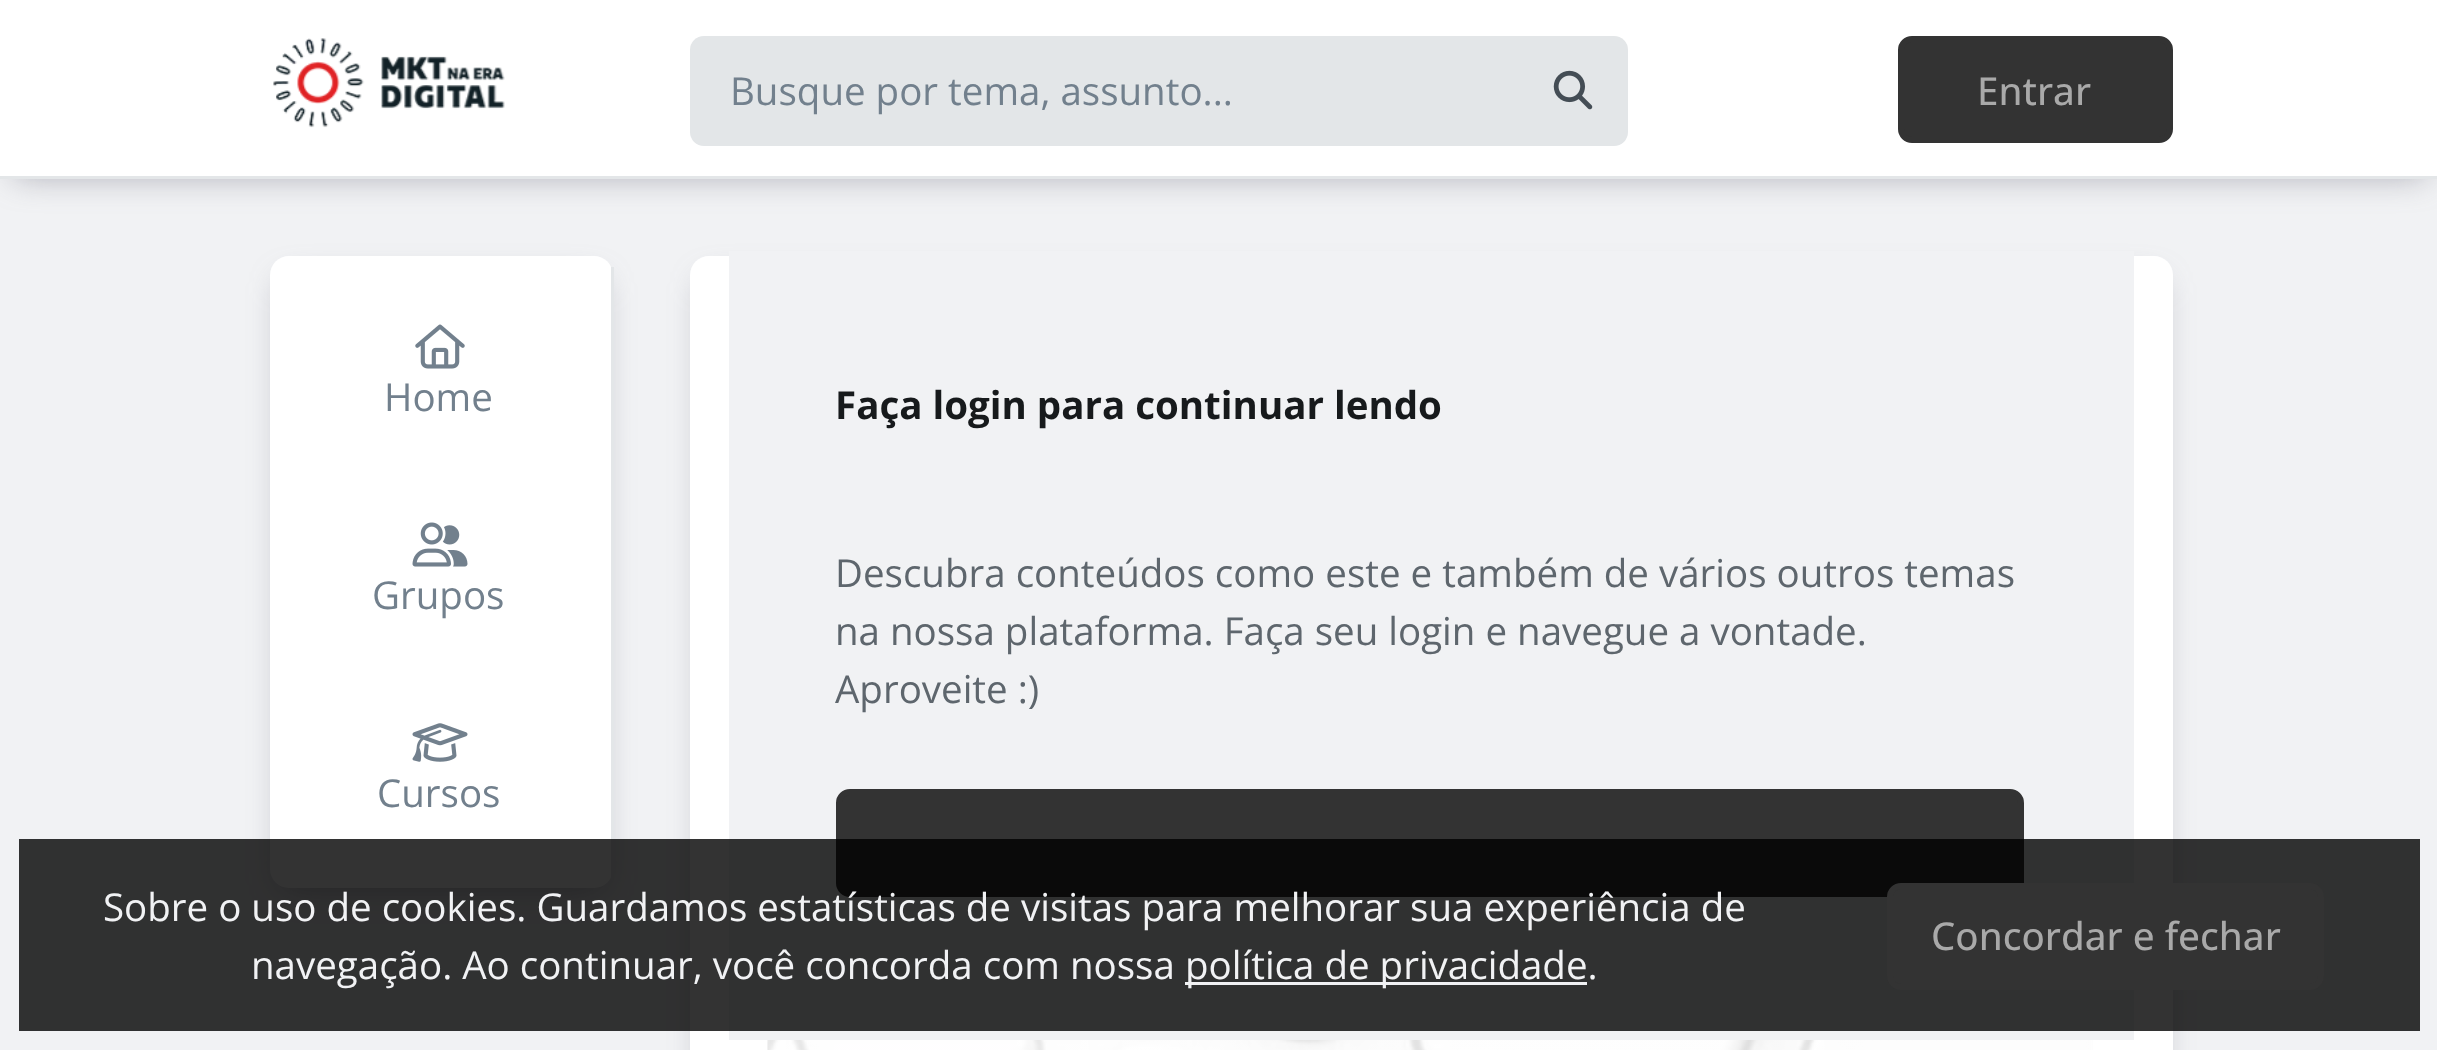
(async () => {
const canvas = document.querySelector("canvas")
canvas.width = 2437
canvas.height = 1050
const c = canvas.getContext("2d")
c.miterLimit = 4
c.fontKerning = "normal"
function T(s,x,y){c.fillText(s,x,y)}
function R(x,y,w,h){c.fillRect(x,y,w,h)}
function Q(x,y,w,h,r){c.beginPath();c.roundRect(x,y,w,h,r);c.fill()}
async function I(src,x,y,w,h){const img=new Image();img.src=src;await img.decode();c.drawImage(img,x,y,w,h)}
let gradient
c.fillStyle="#f1f2f4"
R(0,0,2437,1050)
c.fillStyle="#64647680"
c.filter="blur(16.5px)"
c.beginPath()
c.rect(14,25,2412,151)
c.fill()
c.filter="none"
c.fillStyle="#fff"
R(0,0,2437,176)
c.fillStyle="#e3e6e8"
R(0,176,2437,3)
await I("1.png",273,38,232,90)
Q(690,36,938,110,14)
c.font="38.5px Open Sans"
c.fillStyle="#72808d"
T("Busque por tema, assunto...",730,105)
await I("2.png",1553,70,40,40)
c.fillStyle="#333"
c.beginPath()
c.roundRect(1901,39,269,101,11)
c.fill()
c.strokeStyle="#333"
c.lineWidth=6
c.stroke()
c.font="500 38.5px Open Sans"
c.fillStyle="#a9a9a9"
T("Entrar",1977,105)
c.fillStyle="#64647680"
c.filter="blur(16.5px)"
c.beginPath()
c.roundRect(283,281,317,605,6)
c.fill()
c.filter="none"
c.fillStyle="#fff"
Q(270,256,343,632,19)
c.fillStyle="#e3e6e8"
R(611,267,3,613)
await I("3.png",415,324,50,45)
c.font="38.5px Open Sans"
c.fillStyle="#72808d"
T("Home",384,411)
await I("4.png",412,522,56,45)
T("Grupos",372,609)
await I("5.png",412,723,56,39)
T("Cursos",377,807)
c.fillStyle="#64647680"
c.filter="blur(16.5px)"
c.beginPath()
c.roundRect(704,281,1455,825,6)
c.fill()
c.filter="none"
c.fillStyle="#fff"
Q(690,256,1483,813,19)
await I("6.png",767,1040,1326,10)
gradient = c.createLinearGradient(1431,256,1431,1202)
gradient.addColorStop(0,"#ffffff00")
gradient.addColorStop(1,"#fff")
c.fillStyle = gradient
R(767,1040,1325,10)
c.fillStyle="#f1f2f4"
R(729,251,1405,789)
c.font="bold 38.5px Open Sans"
c.fillStyle="#171a1c"
T("Faça login para continuar lendo",835,419)
c.font="38.5px Open Sans"
c.fillStyle="#5e666d"
T("Descubra conteúdos como este e também de vários outros temas",835,587)
T("na nossa plataforma. Faça seu login e navegue a vontade.",835,645)
T("Aproveite :)",835,703)
c.fillStyle="#333"
c.beginPath()
c.roundRect(839,792,1182,102,11)
c.fill()
c.stroke()
c.fillStyle="#000000cc"
R(19,839,2401,192)
c.fillStyle="#f1f2f4"
T("Sobre o uso de cookies. Guardamos estatísticas de visitas para melhorar sua experiência de",103,921)
T("navegação. Ao continuar, você concorda com nossa",251,979)
R(1185,982,402,3)
T("política de privacidade.",1185,979)
c.fillStyle="#333"
c.beginPath()
c.roundRect(1890,886,431,101,11)
c.fill()
c.stroke()
c.font="500 38.5px Open Sans"
c.fillStyle="#a9a9a9"
T("Concordar e fechar",1931,950)
})()
